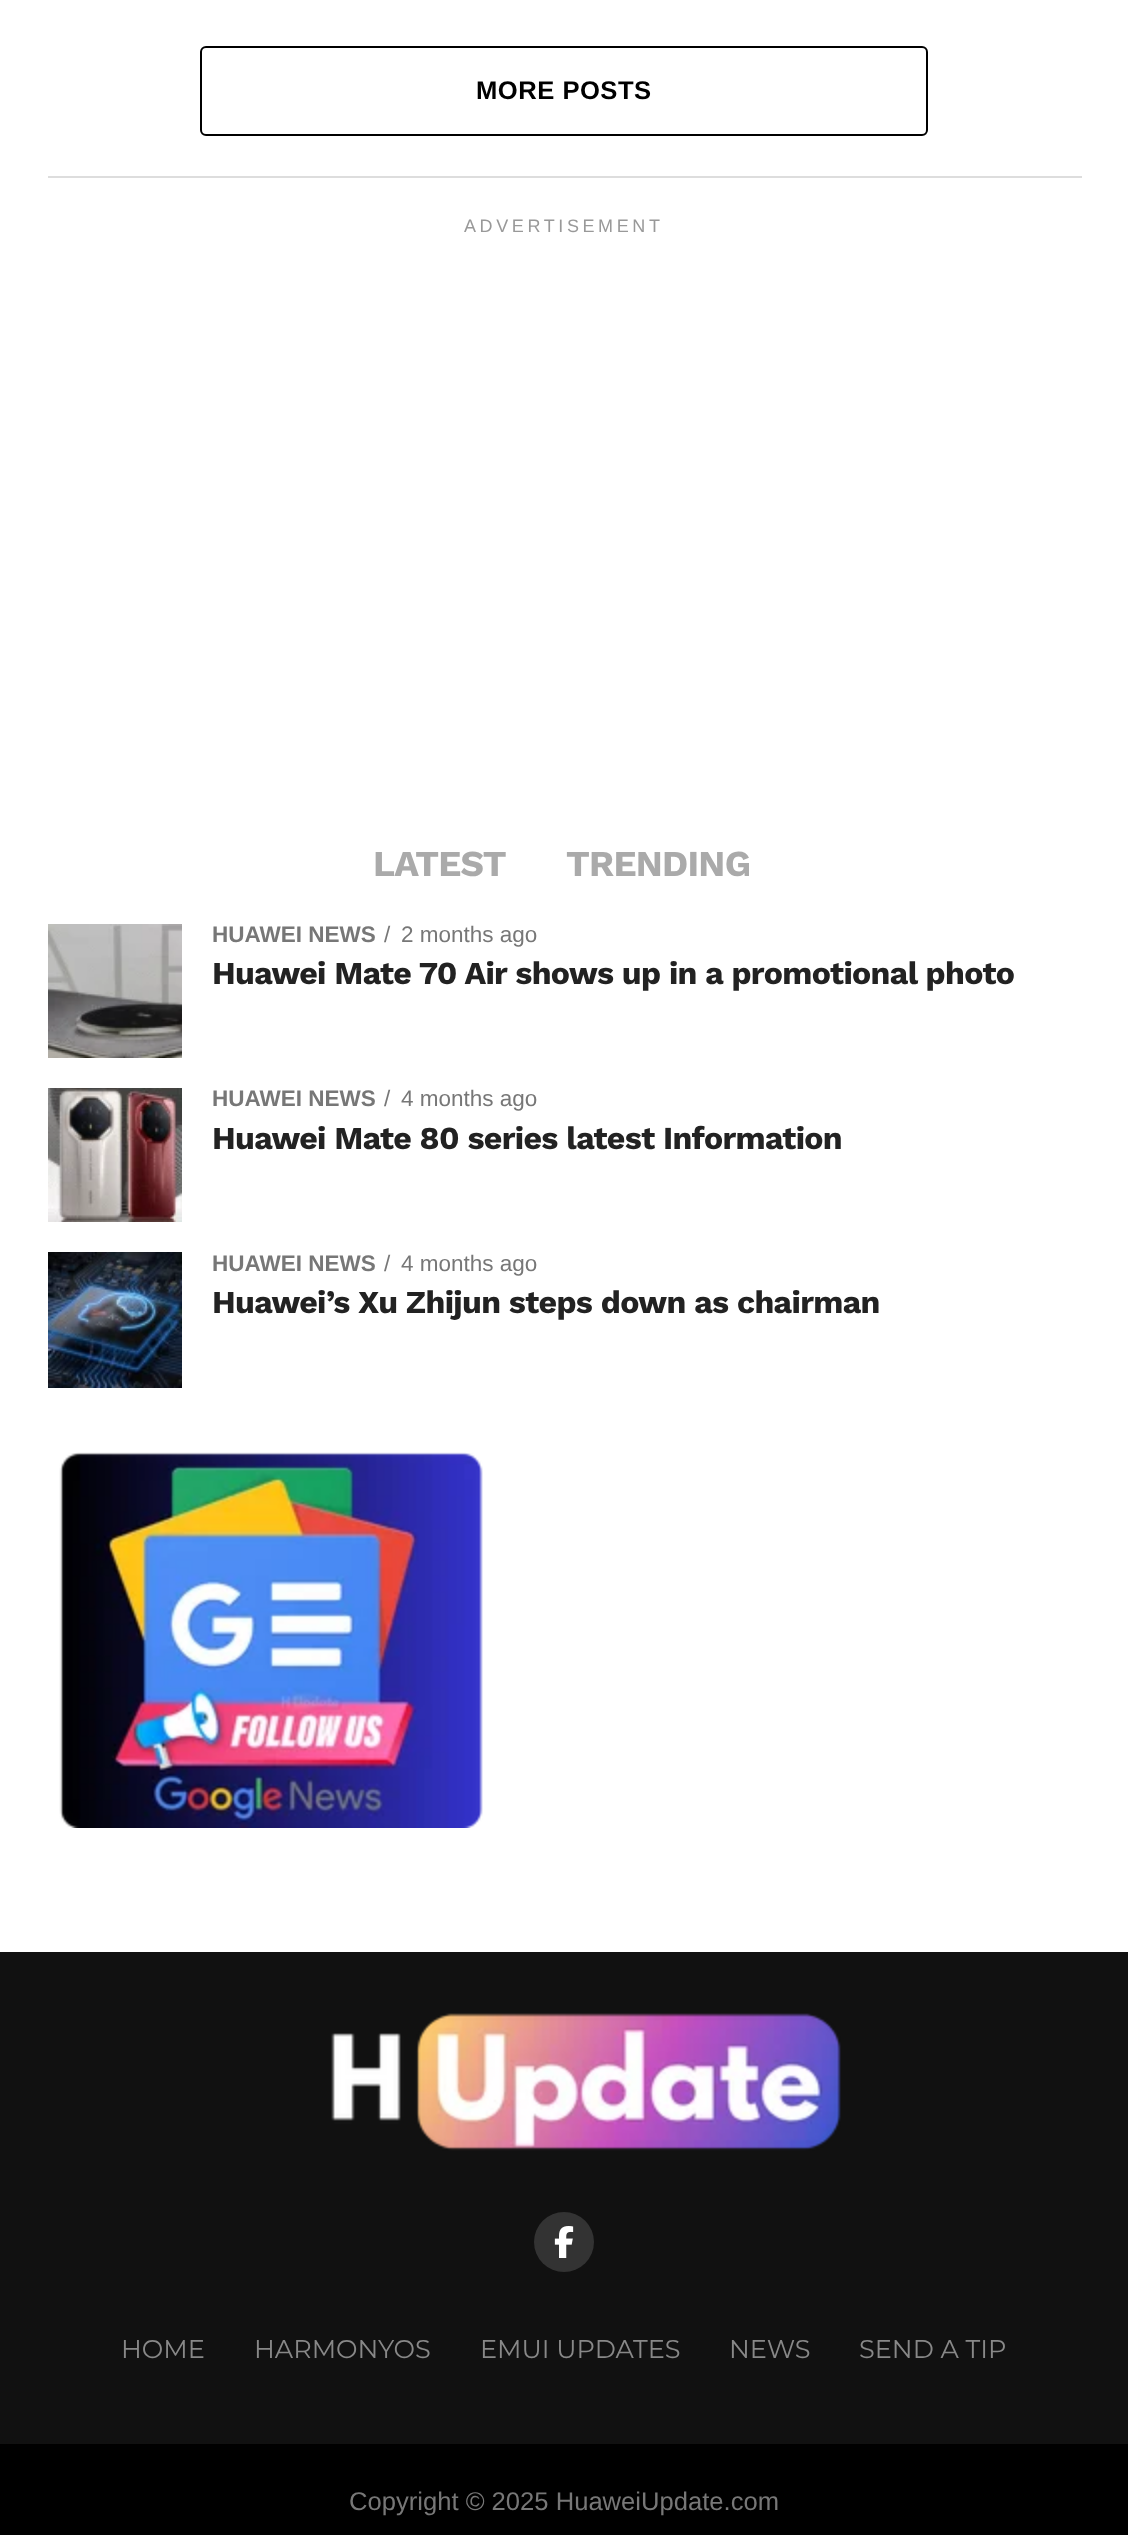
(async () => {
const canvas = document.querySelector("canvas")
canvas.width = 1128
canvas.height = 2535
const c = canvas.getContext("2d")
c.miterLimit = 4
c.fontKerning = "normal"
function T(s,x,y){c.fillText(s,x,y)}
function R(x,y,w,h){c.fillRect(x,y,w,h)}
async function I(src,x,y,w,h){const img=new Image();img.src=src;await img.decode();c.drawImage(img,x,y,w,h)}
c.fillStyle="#fff"
R(0,0,1128,2535)
c.beginPath()
c.roundRect(201,47,726,88,5)
c.strokeStyle="#000"
c.lineWidth=2
c.stroke()
c.letterSpacing="0.5px"
c.font="bold 25.6px Liberation Sans"
c.fillStyle="#000"
T("MORE POSTS",476,99)
c.fillStyle="#ddd"
R(48,176,1034,2)
c.letterSpacing="3.6px"
c.font="18px Liberation Sans"
c.fillStyle="#999"
T("ADVERTISEMENT",464,232)
c.letterSpacing="-0.75px"
c.font="bold 36.5px Work Sans"
c.fillStyle="#aaa"
T("LATEST",373,876)
T("TRENDING",566,876)
await I("1.png",48,924,134,134)
c.letterSpacing="0px"
c.font="bold 22.5px Liberation Sans"
c.fillStyle="#777"
T("HUAWEI NEWS",212,942)
c.font="22.5px Liberation Sans"
T("/",384,942)
T("2 months ago",401,942)
c.letterSpacing="-0.65px"
c.font="bold 32px Work Sans"
c.fillStyle="#222"
T("Huawei Mate 70 Air shows up in a promotional photo",212,984)
await I("2.png",48,1088,134,134)
c.letterSpacing="0px"
c.font="bold 22.5px Liberation Sans"
c.fillStyle="#777"
T("HUAWEI NEWS",212,1106)
c.font="22.5px Liberation Sans"
T("/",384,1106)
T("4 months ago",401,1106)
c.letterSpacing="-0.65px"
c.font="bold 32px Work Sans"
c.fillStyle="#222"
T("Huawei Mate 80 series latest Information",212,1149)
await I("3.png",48,1252,134,136)
c.letterSpacing="0px"
c.font="bold 22.5px Liberation Sans"
c.fillStyle="#777"
T("HUAWEI NEWS",212,1271)
c.font="22.5px Liberation Sans"
T("/",384,1271)
T("4 months ago",401,1271)
c.letterSpacing="-0.65px"
c.font="bold 32px Work Sans"
c.fillStyle="#222"
T("Huawei’s Xu Zhijun steps down as chairman",212,1313)
await I("4.png",59,1452,424,376)
c.fillStyle="#111"
R(0,1952,1128,492)
await I("5.png",331,2013,510,138)
c.fillStyle="#333"
c.beginPath()
c.arc(564,2242,30,0,7)
c.fill()
await I("6.png",554,2226,20,32)
c.letterSpacing="0px"
c.font="25.6px Montserrat"
c.fillStyle="#888"
T("HOME",121,2358)
T("HARMONYOS",254,2358)
T("EMUI UPDATES",480,2358)
T("NEWS",729,2358)
T("SEND A TIP",859,2358)
c.fillStyle="#000"
R(0,2444,1128,91)
c.font="25.6px Liberation Sans"
c.fillStyle="#777"
T("Copyright © 2025 HuaweiUpdate.com",349,2510)
})()
